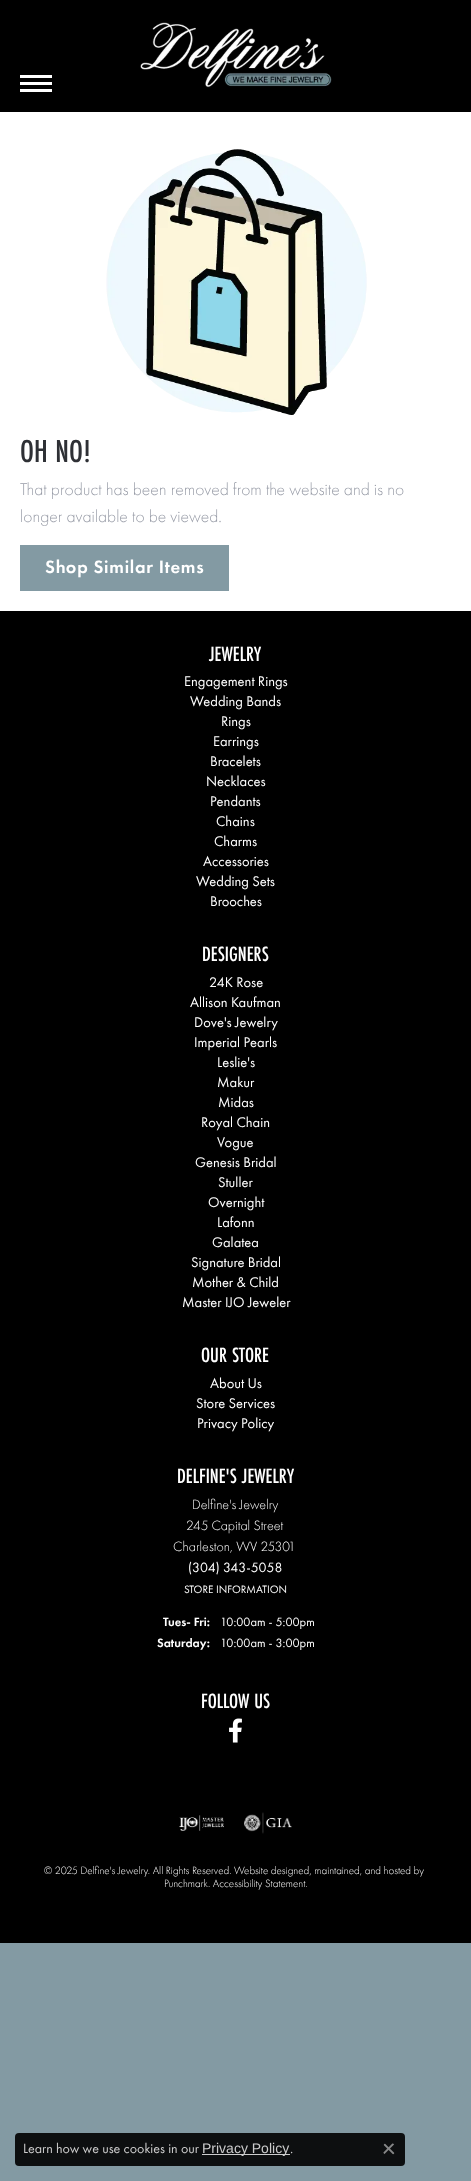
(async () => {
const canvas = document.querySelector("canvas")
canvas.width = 471
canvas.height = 2181
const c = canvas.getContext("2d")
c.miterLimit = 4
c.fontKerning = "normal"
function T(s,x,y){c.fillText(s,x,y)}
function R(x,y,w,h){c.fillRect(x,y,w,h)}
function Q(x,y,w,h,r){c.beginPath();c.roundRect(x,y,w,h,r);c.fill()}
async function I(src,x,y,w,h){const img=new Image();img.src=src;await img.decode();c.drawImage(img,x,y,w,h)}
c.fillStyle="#839aa3"
R(0,0,471,2181)
c.fillStyle="#000"
R(0,0,471,112)
c.fillStyle="#fff"
R(20,75,32,3)
R(20,82,32,3)
R(20,89,32,3)
await I("1.png",140,22,192,66)
R(0,112,471,499)
await I("2.png",106,149,261,266)
c.font="500 33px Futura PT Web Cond"
c.fillStyle="#2e3035"
T("OH NO!",20,462)
c.font="300 17.6px Futura PT"
c.fillStyle="#989ca7"
T("That product has been removed from the website and is no",20,495)
T("longer available to be viewed.",20,522)
c.fillStyle="#839aa3"
R(20,545,209,46)
c.letterSpacing="0.75px"
c.font="500 18.5px Futura PT"
c.fillStyle="#fff"
T("Shop Similar Items",45,573)
c.fillStyle="#000"
R(0,611,471,1332)
c.letterSpacing="0px"
c.font="500 21.5px Futura PT Web Cond"
c.fillStyle="#fff"
T("JEWELRY",209,661)
c.font="14.5px Futura PT"
T("Engagement Rings",184,686)
T("Wedding Bands",190,706)
T("Rings",221,726)
T("Earrings",213,746)
T("Bracelets",210,766)
T("Necklaces",206,786)
T("Pendants",210,806)
T("Chains",216,826)
T("Charms",214,846)
T("Accessories",203,866)
T("Wedding Sets",196,886)
T("Brooches",210,906)
c.font="500 21.5px Futura PT Web Cond"
T("DESIGNERS",202,961)
c.font="14.5px Futura PT"
T("24K Rose",209,987)
T("Allison Kaufman",190,1007)
T("Dove's Jewelry",194,1027)
T("Imperial Pearls",194,1047)
T("Leslie's",217,1067)
T("Makur",217,1087)
T("Midas",218,1107)
T("Royal Chain",201,1127)
T("Vogue",217,1147)
T("Genesis Bridal",195,1167)
T("Stuller",218,1187)
T("Overnight",208,1207)
T("Lafonn",217,1227)
T("Galatea",212,1247)
T("Signature Bridal",191,1267)
T("Mother & Child",192,1287)
T("Master IJO Jeweler",182,1307)
c.font="500 21.5px Futura PT Web Cond"
T("OUR STORE",201,1362)
c.font="14.5px Futura PT"
T("About Us",210,1388)
T("Store Services",196,1408)
T("Privacy Policy",197,1428)
c.font="500 21.5px Futura PT Web Cond"
T("DELFINE'S JEWELRY",177,1483)
c.font="300 14px Futura PT"
T("Delfine's Jewelry",192,1509)
T("245 Capital Street",186,1530)
T("Charleston, WV 25301",173,1551)
c.font="14px Futura PT"
T("(304) 343-5058",188,1572)
c.font="11.1px Futura PT"
T("STORE INFORMATION",184,1593)
c.font="500 12.5px Futura PT"
T("Tues- Fri:",163,1626)
c.font="12.5px Futura PT"
T("10:00am - 5:00pm",220,1626)
c.font="500 12.5px Futura PT"
T("Saturday:",157,1647)
c.font="12.5px Futura PT"
T("10:00am - 3:00pm",220,1647)
c.font="500 21.5px Futura PT Web Cond"
T("FOLLOW US",201,1708)
await I("3.png",229,1718,13,25)
await I("4.png",179,1815,45,16)
await I("5.png",244,1812,48,22)
c.font="300 11px Futura PT"
T("© 2025 Delfine's Jewelry. All Rights Reserved. Website designed, maintained, and hosted by",44,1874)
T("Punchmark. Accessibility Statement.",164,1887)
c.fillStyle="#0d0f10"
Q(15,2133,390,33,4)
c.font="14px Futura PT"
c.fillStyle="#ccc"
T("Learn how we use cookies in our",23,2153)
R(202,2154,88,1)
c.font="14px Liberation Sans"
T("Privacy Policy",202,2153)
c.font="14px Futura PT"
T(".",290,2153)
await I("6.png",383,2143,12,12)
})()
